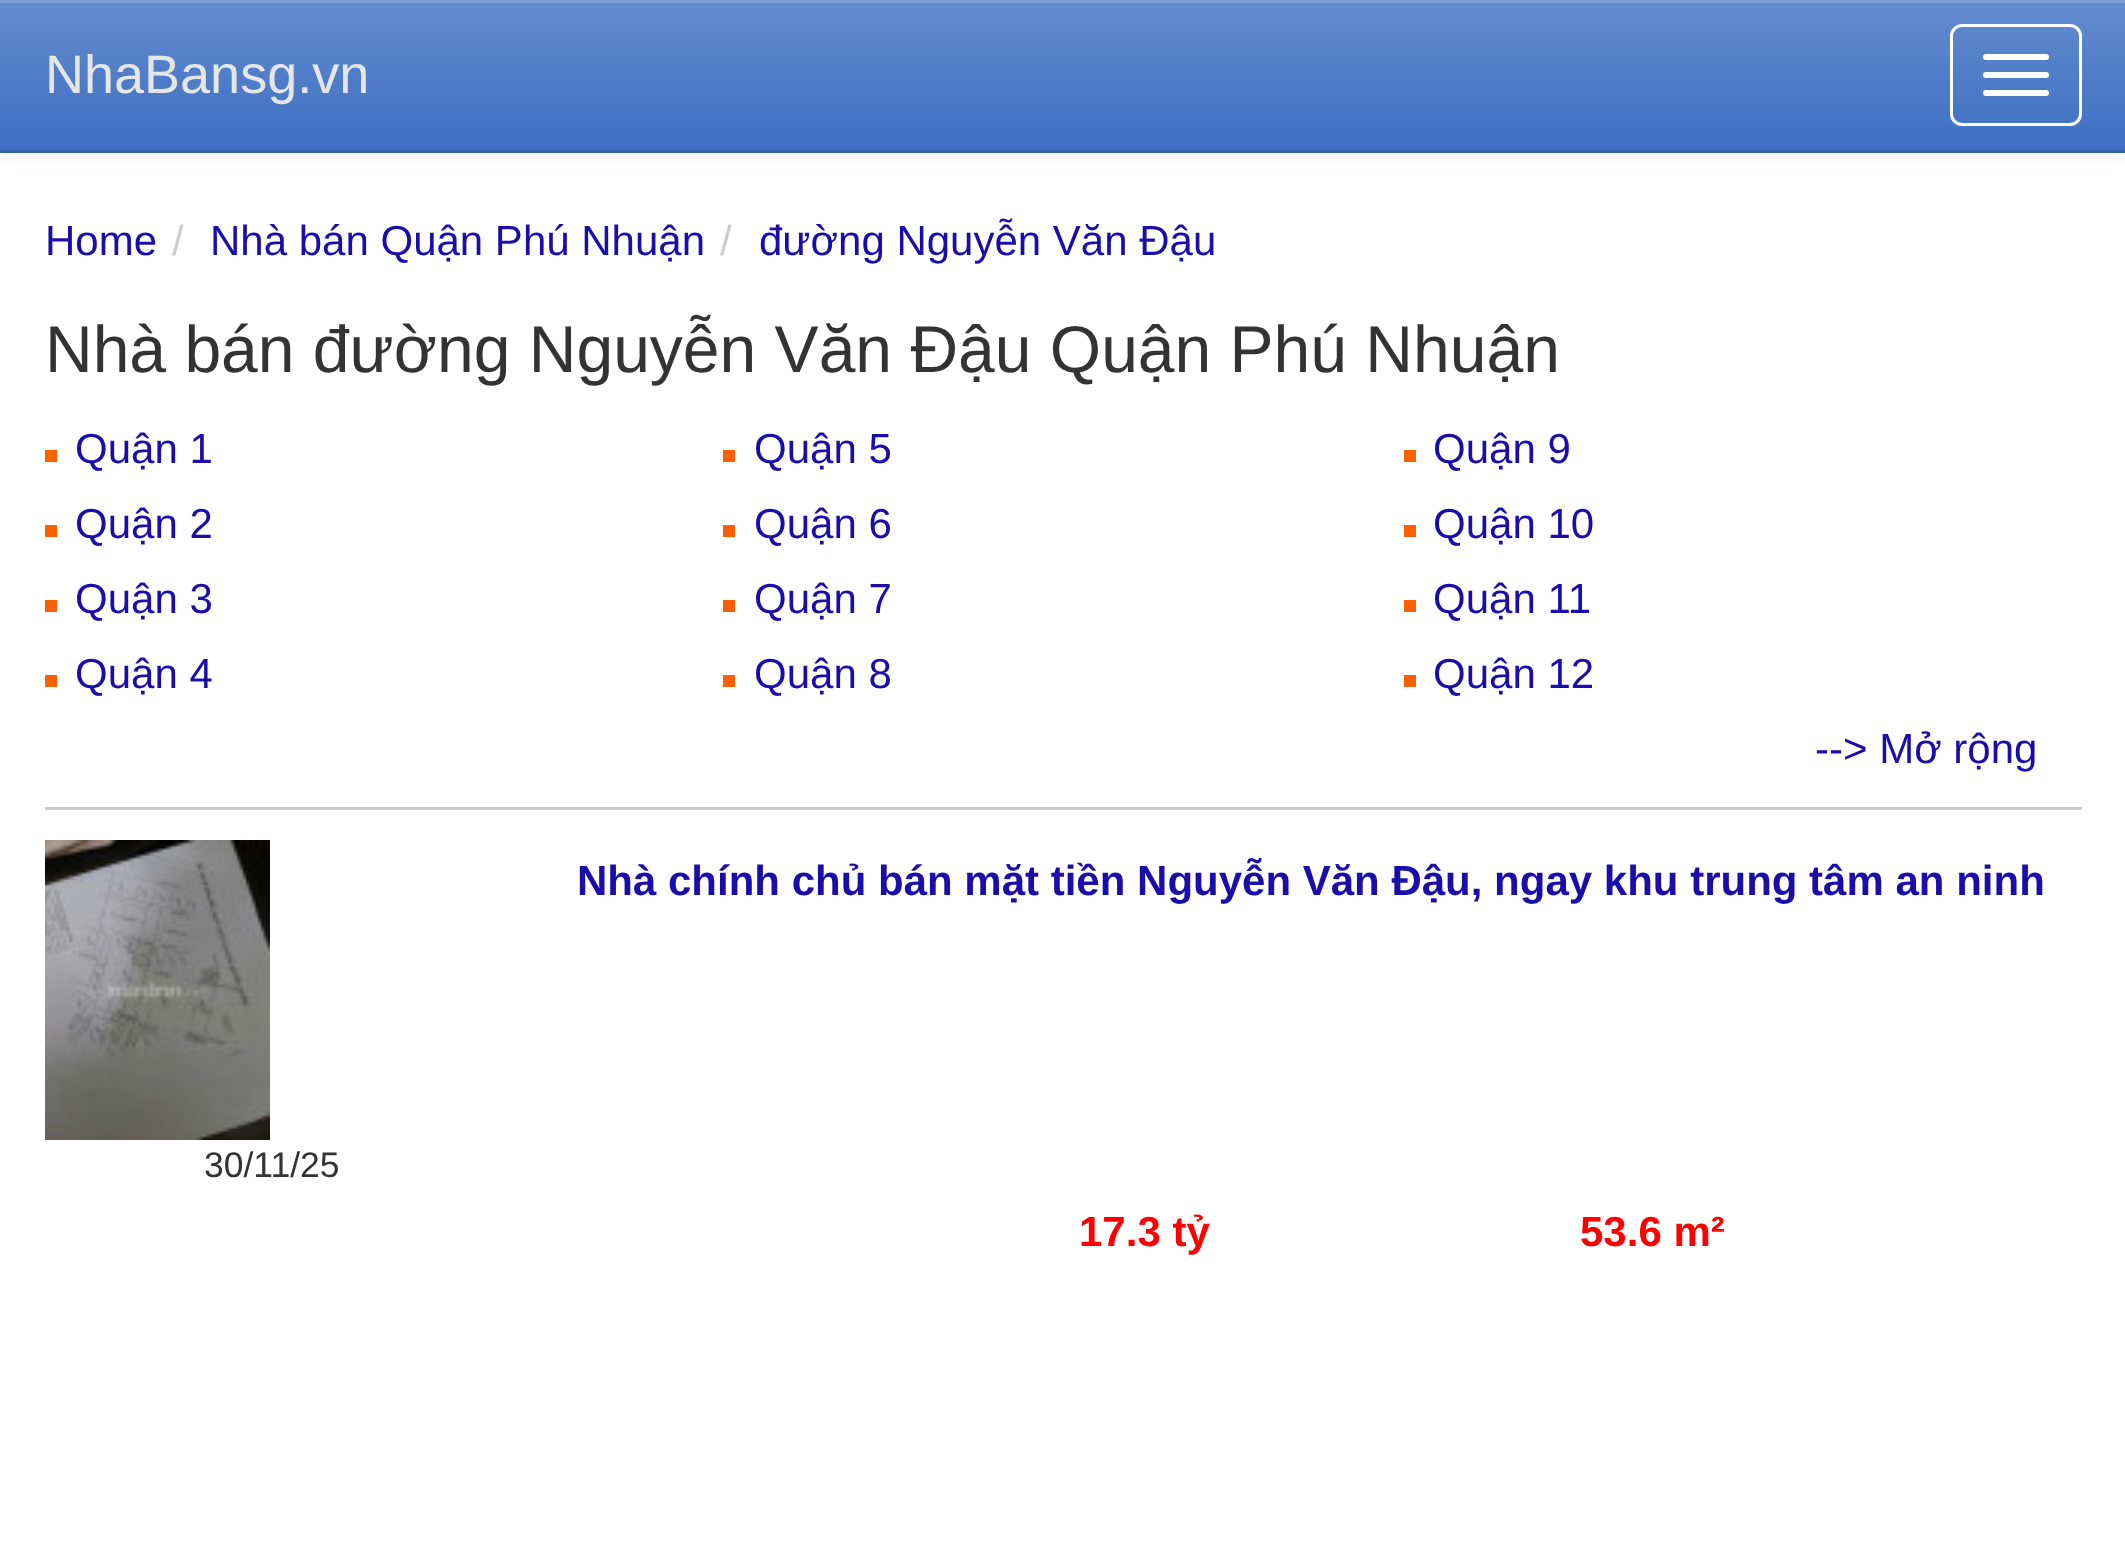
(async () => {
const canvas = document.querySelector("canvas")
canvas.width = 2125
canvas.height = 1561
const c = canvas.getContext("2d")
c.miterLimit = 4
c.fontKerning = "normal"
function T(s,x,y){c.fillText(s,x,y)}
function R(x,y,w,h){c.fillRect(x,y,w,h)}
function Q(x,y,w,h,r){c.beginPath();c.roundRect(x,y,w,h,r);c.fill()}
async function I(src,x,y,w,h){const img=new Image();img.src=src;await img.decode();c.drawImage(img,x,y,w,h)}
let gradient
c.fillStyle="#fff"
R(0,0,2125,1561)
c.fillStyle="#00000012"
c.filter="blur(7.5px)"
c.beginPath()
c.rect(0,3,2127,153)
c.fill()
c.filter="none"
gradient = c.createLinearGradient(1064,0,1064,150)
gradient.addColorStop(0,"#648ccf")
gradient.addColorStop(1,"#3d6fc3")
c.fillStyle = gradient
R(0,3,2125,147)
c.fillStyle="#7b9dd6"
R(0,0,2125,3)
c.fillStyle="#3561aa"
R(0,150,2125,3)
c.font="54px Liberation Sans"
c.fillStyle="#e6e6e6"
T("NhaBansg.vn",45,93)
c.beginPath()
c.roundRect(1951.5,25.5,129,99,10.5)
c.strokeStyle="#fff"
c.lineWidth=3
c.stroke()
c.fillStyle="#fff"
Q(1983,54,66,6,3)
Q(1983,72,66,6,3)
Q(1983,90,66,6,3)
c.font="42px Liberation Sans"
c.fillStyle="#1a0dab"
T("Home",45,255)
c.fillStyle="#ccc"
T("/",172,255)
c.fillStyle="#1a0dab"
T("Nhà bán Quận Phú Nhuận",210,255)
c.fillStyle="#ccc"
T("/",720,255)
c.fillStyle="#1a0dab"
T("đường Nguyễn Văn Đậu",759,255)
c.font="66px Liberation Sans"
c.fillStyle="#333"
T("Nhà bán đường Nguyễn Văn Đậu Quận Phú Nhuận",45,372)
c.fillStyle="#fe6000"
R(45,450,12,12)
c.font="42px Liberation Sans"
c.fillStyle="#1a0dab"
T("Quận 1",75,463)
c.fillStyle="#fe6000"
R(45,525,12,12)
c.fillStyle="#1a0dab"
T("Quận 2",75,538)
c.fillStyle="#fe6000"
R(45,600,12,12)
c.fillStyle="#1a0dab"
T("Quận 3",75,613)
c.fillStyle="#fe6000"
R(45,675,12,12)
c.fillStyle="#1a0dab"
T("Quận 4",75,688)
c.fillStyle="#fe6000"
R(723,450,12,12)
c.fillStyle="#1a0dab"
T("Quận 5",754,463)
c.fillStyle="#fe6000"
R(723,525,12,12)
c.fillStyle="#1a0dab"
T("Quận 6",754,538)
c.fillStyle="#fe6000"
R(723,600,12,12)
c.fillStyle="#1a0dab"
T("Quận 7",754,613)
c.fillStyle="#fe6000"
R(723,675,12,12)
c.fillStyle="#1a0dab"
T("Quận 8",754,688)
c.fillStyle="#fe6000"
R(1404,450,12,12)
c.fillStyle="#1a0dab"
T("Quận 9",1433,463)
c.fillStyle="#fe6000"
R(1404,525,12,12)
c.fillStyle="#1a0dab"
T("Quận 10",1433,538)
c.fillStyle="#fe6000"
R(1404,600,12,12)
c.fillStyle="#1a0dab"
T("Quận 11",1433,613)
c.fillStyle="#fe6000"
R(1404,675,12,12)
c.fillStyle="#1a0dab"
T("Quận 12",1433,688)
T("--> Mở rộng",1815,763)
c.fillStyle="#ccc"
R(45,807,2037,3)
c.font="bold 42px Liberation Sans"
c.fillStyle="#1a0dab"
T("Nhà chính chủ bán mặt tiền Nguyễn Văn Đậu, ngay khu trung tâm an ninh",577,895)
await I("1.png",45,840,225,300)
c.font="35.5px Liberation Sans"
c.fillStyle="#333"
T("30/11/25",204,1177)
c.font="bold 42px Liberation Sans"
c.fillStyle="#f00"
T("17.3 tỷ",1079,1246)
T("53.6 m²",1580,1246)
})()
